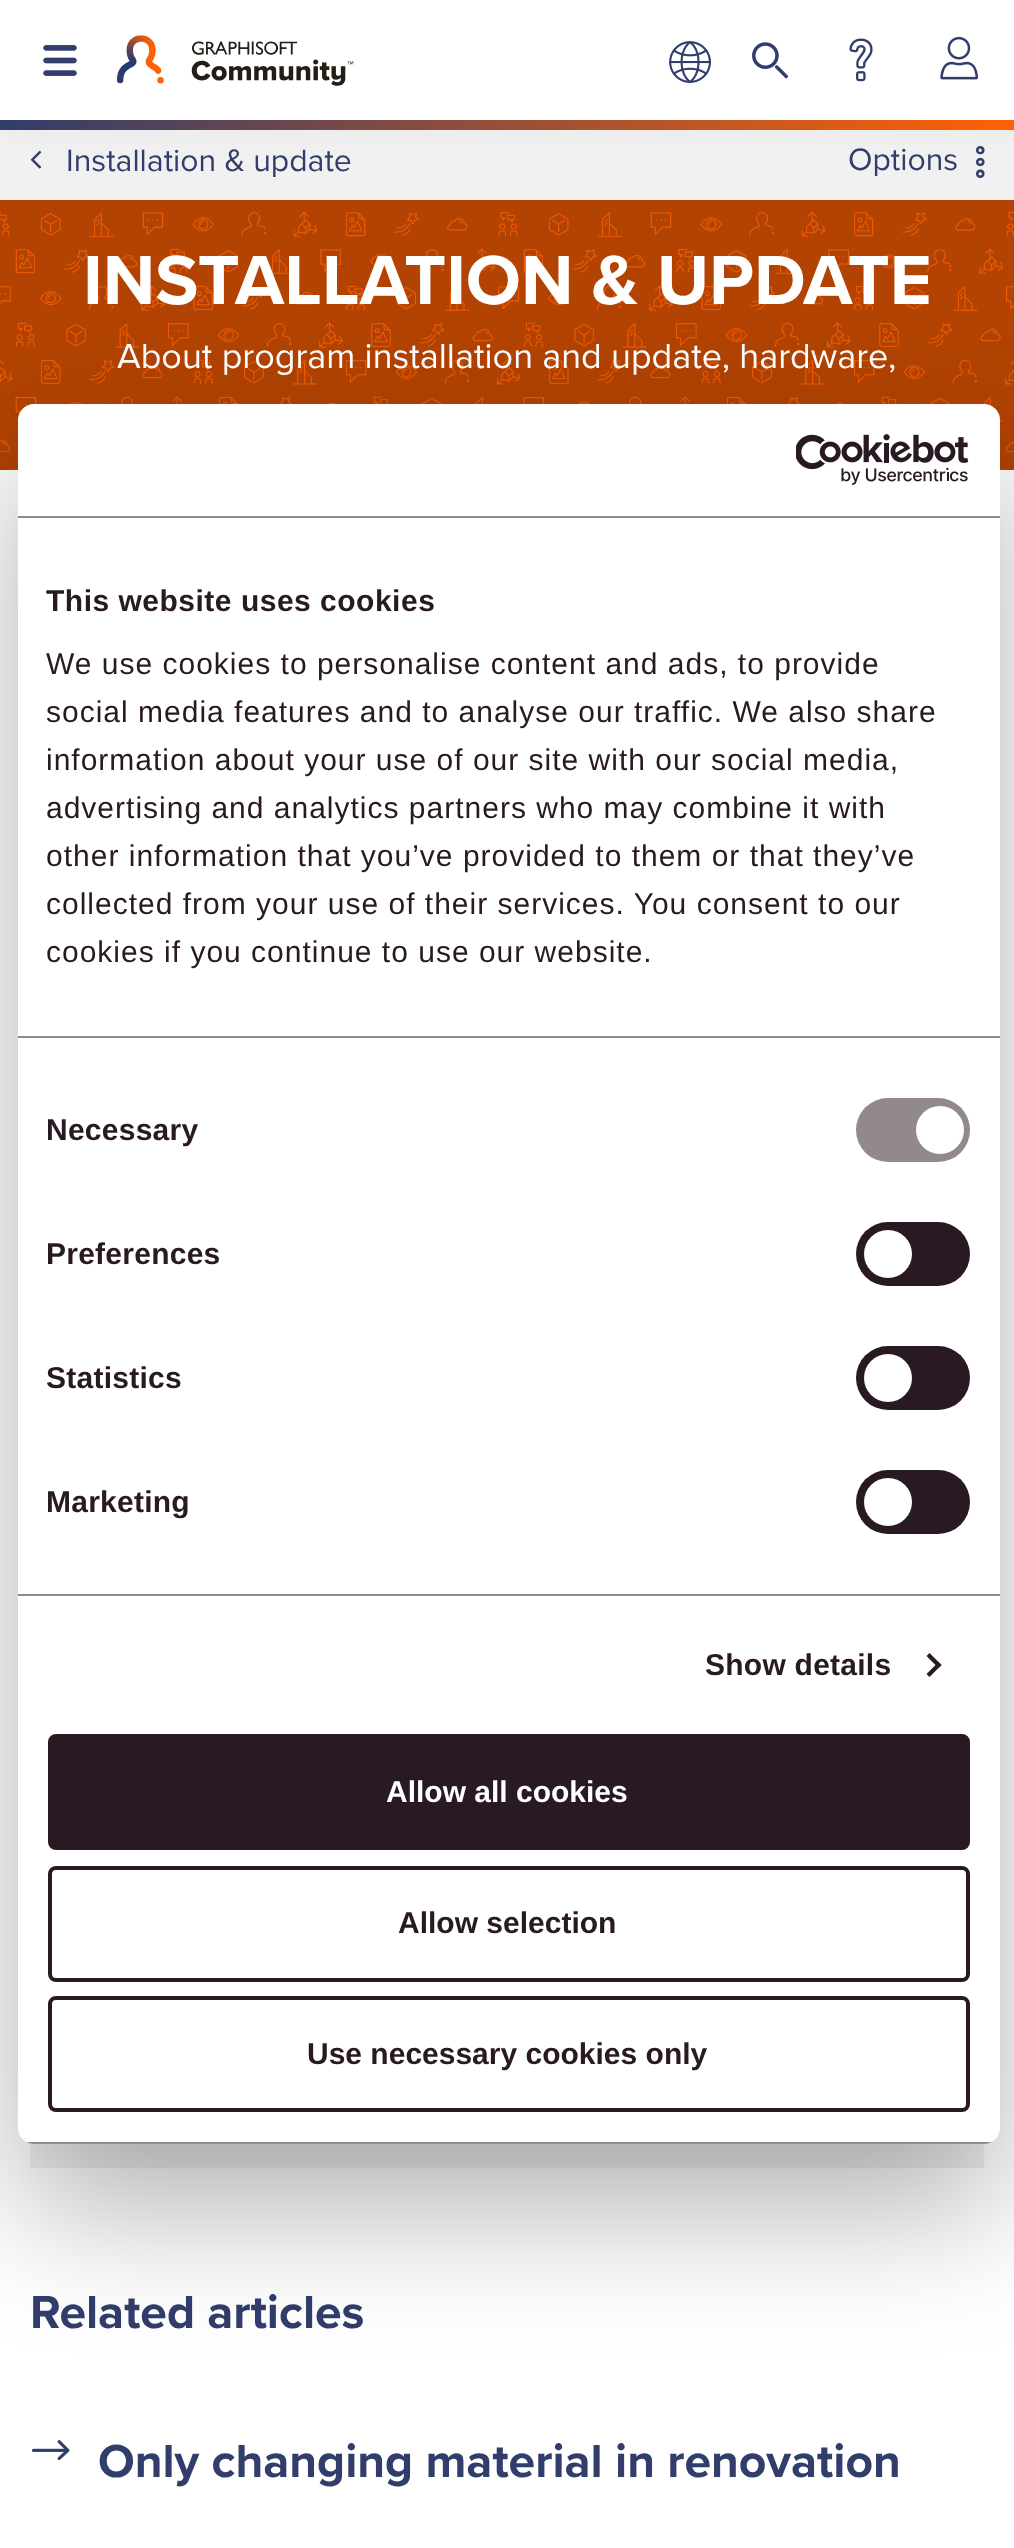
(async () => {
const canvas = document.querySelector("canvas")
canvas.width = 1014
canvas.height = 2548
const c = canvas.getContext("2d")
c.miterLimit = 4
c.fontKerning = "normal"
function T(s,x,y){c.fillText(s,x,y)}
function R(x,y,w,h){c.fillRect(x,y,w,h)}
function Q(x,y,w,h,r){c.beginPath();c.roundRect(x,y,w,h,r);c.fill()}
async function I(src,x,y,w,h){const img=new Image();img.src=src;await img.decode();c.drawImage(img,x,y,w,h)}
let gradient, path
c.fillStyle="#fff"
R(0,0,1014,2548)
c.fillStyle="#f1f1f2"
R(0,130,1014,70)
await I("7.png",30,150,12,19)
await I("8.png",976,146,9,32)
c.fillStyle="#231f2012"
c.filter="blur(20px)"
c.beginPath()
c.rect(0,0,1014,120)
c.fill()
c.filter="none"
c.fillStyle="#fff"
R(0,0,1014,120)
await I("1.png",43,45,34,31)
await I("2.png",117,35,237,51)
await I("3.png",669,41,42,42)
await I("4.png",752,42,36,37)
await I("5.png",849,38,24,44)
await I("6.png",940,36,38,44)
gradient = c.createLinearGradient(0,125,1014,125)
gradient.addColorStop(0,"#313d6b")
gradient.addColorStop(1,"#ff6104")
c.fillStyle = gradient
R(0,120,1014,10)
c.font="32px Proxima Nova"
c.fillStyle="#313d6b"
T("Installation & update",66,171)
T("Options",848,170)
await I("9.png",0,200,1014,270)
c.font="bold 72px Proxima Nova"
c.fillStyle="#fff"
T("INSTALLATION & UPDATE",83,304)
c.font="36px Proxima Nova"
T("About program installation and update, hardware,",117,368)
c.fillStyle="#f1f1f2"
R(30,2143,954,25)
c.font="bold 48px Proxima Nova"
c.fillStyle="#313d6b"
T("Related articles",30,2328)
await I("10.png",32,2440,38,20)
T("Only changing material in renovation",98,2477)
c.fillStyle="#0000004d"
c.filter="blur(68px)"
c.beginPath()
c.roundRect(18,468,982,1740,16)
c.fill()
c.filter="none"
c.fillStyle="#fff"
Q(18,404,982,1740,16)
c.fillStyle="#92898e"
R(18,516,982,2)
await I("11.png",796,434,173,51)
R(18,1036,982,2)
c.letterSpacing="0.5px"
c.font="bold 30px Liberation Sans"
c.fillStyle="#291923"
T("This website uses cookies",46,611)
c.letterSpacing="1px"
c.font="30px Liberation Sans"
T("We use cookies to personalise content and ads, to provide",46,674)
T("social media features and to analyse our traffic. We also share",46,722)
T("information about your use of our site with our social media,",46,770)
T("advertising and analytics partners who may combine it with",46,818)
T("other information that you’ve provided to them or that they’ve",46,866)
T("collected from your use of their services. You consent to our",46,914)
T("cookies if you continue to use our website.",46,962)
c.fillStyle="#92898e"
R(18,1594,982,2)
c.letterSpacing="0.25px"
c.font="bold 30px Liberation Sans"
c.fillStyle="#291923"
T("Necessary",46,1140)
c.fillStyle="#92898e"
Q(856,1098,114,64,32)
c.fillStyle="#fff"
c.beginPath()
c.arc(940,1130,24,0,7)
c.fill()
c.fillStyle="#291923"
T("Preferences",46,1264)
Q(856,1222,114,64,32)
c.fillStyle="#fff"
c.beginPath()
c.arc(888,1254,24,0,7)
c.fill()
c.fillStyle="#291923"
T("Statistics",46,1388)
Q(856,1346,114,64,32)
c.fillStyle="#fff"
c.beginPath()
c.arc(888,1378,24,0,7)
c.fill()
c.fillStyle="#291923"
T("Marketing",46,1512)
Q(856,1470,114,64,32)
c.fillStyle="#fff"
c.beginPath()
c.arc(888,1502,24,0,7)
c.fill()
c.fillStyle="#291923"
T("Show details",705,1675)
path = new Path2D("M929.5 1653l12 12l-3 3l-12-12z")
c.fill(path)
path = new Path2D("M938.5 1662l3 3l-12 12l-3-3z")
c.fill(path)
c.save()
c.beginPath()
c.roundRect(18,404,982,1740,16)
c.clip()
c.fillStyle="#92898e"
R(18,2142,982,2)
c.restore()
c.beginPath()
c.roundRect(50,1736,918,112,6)
c.fill()
c.strokeStyle="#291923"
c.lineWidth=4
c.stroke()
c.letterSpacing="0px"
c.fillStyle="#fff"
T("Allow all cookies",386,1802)
c.beginPath()
c.roundRect(50,1868,918,112,6)
c.stroke()
c.fillStyle="#291923"
T("Allow selection",398,1933)
c.beginPath()
c.roundRect(50,1998,918,112,6)
c.stroke()
T("Use necessary cookies only",307,2064)
})()
